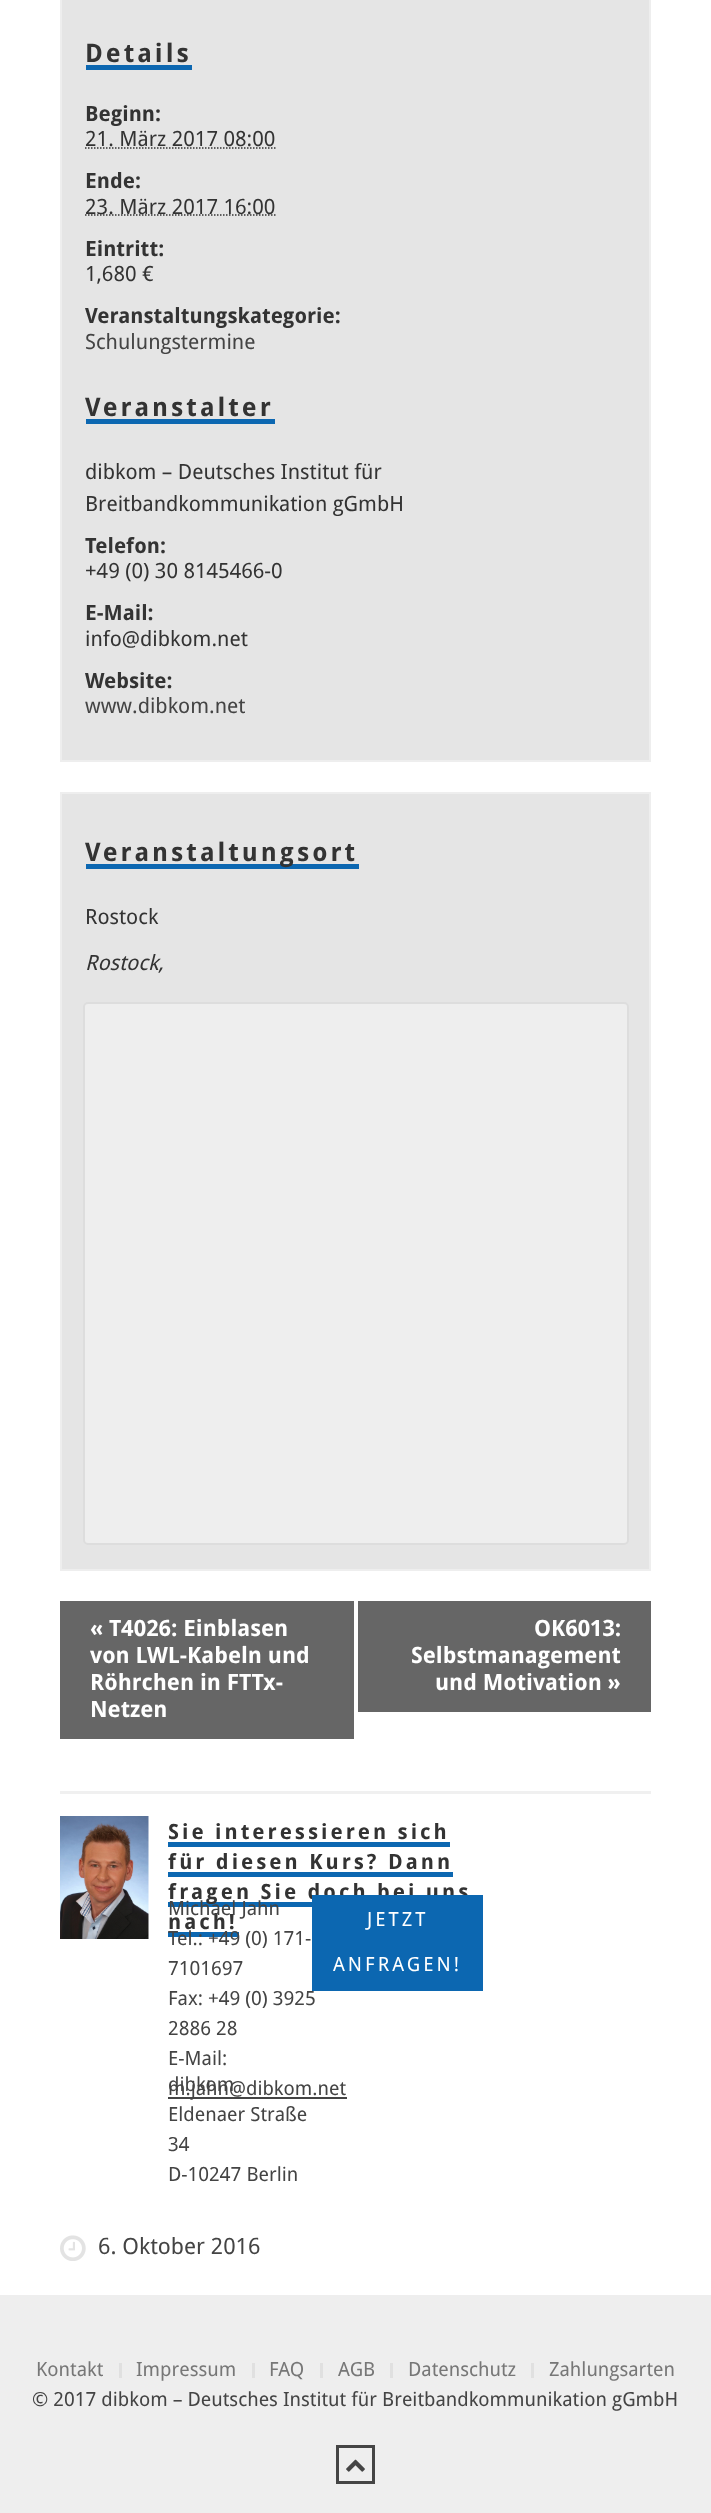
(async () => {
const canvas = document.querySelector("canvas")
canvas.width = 711
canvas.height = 2513
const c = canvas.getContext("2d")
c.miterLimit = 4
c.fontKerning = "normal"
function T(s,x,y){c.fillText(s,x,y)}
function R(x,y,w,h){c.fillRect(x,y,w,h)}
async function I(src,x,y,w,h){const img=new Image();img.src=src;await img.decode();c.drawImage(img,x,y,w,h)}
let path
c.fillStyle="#eee"
R(0,0,711,2513)
c.fillStyle="#fff"
R(0,0,711,2295)
c.fillStyle="#e5e5e5"
c.beginPath()
c.rect(61,-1,589,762)
c.fill()
c.strokeStyle="#eee"
c.lineWidth=2
c.stroke()
c.letterSpacing="3px"
c.font="bold 25.5px Droid Sans"
c.fillStyle="#333"
T("Details",85,62)
c.fillStyle="#0c67b1"
R(86,65,106,5)
c.letterSpacing="0px"
c.font="bold 21px Droid Sans"
c.fillStyle="#333"
T("Beginn:",85,121)
c.font="21px Droid Sans"
T("21. März 2017 08:00",85,146)
path = new Path2D("M85 148h190.5")
c.strokeStyle="#333"
c.lineWidth=1.5
c.setLineDash([1.5,1.5])
c.stroke(path)
c.font="bold 21px Droid Sans"
T("Ende:",85,188)
path = new Path2D("M85 215h190.5")
c.stroke(path)
c.font="21px Droid Sans"
T("23. März 2017 16:00",85,214)
c.font="bold 21px Droid Sans"
T("Eintritt:",85,256)
c.font="21px Droid Sans"
T("1,680 €",85,281)
c.font="bold 21px Droid Sans"
T("Veranstaltungskategorie:",85,323)
c.font="21px Droid Sans"
c.fillStyle="#444"
T("Schulungstermine",85,349)
c.letterSpacing="3px"
c.font="bold 25.5px Droid Sans"
c.fillStyle="#333"
T("Veranstalter",85,416)
c.fillStyle="#0c67b1"
R(86,419,189,5)
c.letterSpacing="0px"
c.font="21px Droid Sans"
c.fillStyle="#333"
T("dibkom – Deutsches Institut für",85,479)
T("Breitbandkommunikation gGmbH",85,511)
c.font="bold 21px Droid Sans"
T("Telefon:",85,553)
c.font="21px Droid Sans"
T("+49 (0) 30 8145466-0",85,578)
c.font="bold 21px Droid Sans"
T("E-Mail:",85,620)
c.font="21px Droid Sans"
T("info@dibkom.net",85,646)
c.font="bold 21px Droid Sans"
T("Website:",85,688)
c.font="21px Droid Sans"
c.fillStyle="#444"
T("www.dibkom.net",85,713)
c.fillStyle="#e5e5e5"
c.beginPath()
c.rect(61,793,589,777)
c.fill()
c.strokeStyle="#eee"
c.lineWidth=2
c.setLineDash([])
c.stroke()
c.fillStyle="#0c67b1"
R(86,864,273,5)
c.letterSpacing="3px"
c.font="bold 25.5px Droid Sans"
c.fillStyle="#333"
T("Veranstaltungsort",85,861)
c.letterSpacing="0px"
c.font="21px Droid Sans"
T("Rostock",85,924)
c.font="italic 21px Droid Sans"
T("Rostock,",85,970)
c.fillStyle="#eee"
c.beginPath()
c.roundRect(84,1003,544,541,4)
c.fill()
c.strokeStyle="#ddd"
c.stroke()
c.fillStyle="#666"
R(60,1601,294,138)
c.font="bold 22.5px Droid Sans"
c.fillStyle="#fff"
T("« T4026: Einblasen",90,1636)
T("von LWL-Kabeln und",90,1663)
T("Röhrchen in FTTx-",90,1690)
T("Netzen",90,1717)
c.fillStyle="#666"
R(358,1601,293,111)
c.fillStyle="#fff"
T("OK6013:",534,1636)
T("Selbstmanagement",411,1663)
T("und Motivation »",435,1690)
c.fillStyle="#f0f0f0"
R(60,1791,591,3)
await I("1.png",60,1816,89,123)
c.letterSpacing="3px"
c.font="bold 21px Droid Sans"
c.fillStyle="#333"
T("Sie interessieren sich",168,1839)
c.fillStyle="#0c67b1"
R(168,1842,282,5)
c.fillStyle="#333"
T("für diesen Kurs? Dann",168,1869)
c.fillStyle="#0c67b1"
R(168,1872,285,5)
R(168,1902,144,5)
c.fillStyle="#333"
T("fragen Sie doch bei uns",168,1899)
T("nach!",168,1929)
c.fillStyle="#0c67b1"
R(168,1932,71,5)
c.letterSpacing="0px"
c.font="19.5px Droid Sans"
c.fillStyle="#444"
T("Michael Jahn",168,1915)
T("Tel.: +49 (0) 171-",168,1945)
T("7101697",168,1975)
T("Fax: +49 (0) 3925",168,2005)
T("2886 28",168,2035)
T("E-Mail:",168,2065)
R(168,2097,179,2)
T("m.jahn@dibkom.net",168,2095)
c.fillStyle="#0c67b1"
R(312,1895,171,96)
c.letterSpacing="3px"
c.fillStyle="#fff"
T("JETZT",367,1926)
T("ANFRAGEN!",333,1971)
c.letterSpacing="0px"
c.fillStyle="#444"
T("dibkom",168,2091)
T("Eldenaer Straße",168,2121)
T("34",168,2151)
T("D-10247 Berlin",168,2181)
await I("2.png",60,2235,26,26)
c.font="22.5px Droid Sans"
T("6. Oktober 2016",98,2254)
c.font="19.5px Droid Sans"
c.fillStyle="#777"
T("Kontakt",36,2376)
c.fillStyle="#e0e0e0"
R(119,2363,3,15)
c.fillStyle="#777"
T("Impressum",136,2376)
c.fillStyle="#e0e0e0"
R(252,2363,3,15)
c.fillStyle="#777"
T("FAQ",269,2376)
c.fillStyle="#e0e0e0"
R(320,2363,3,15)
c.fillStyle="#777"
T("AGB",338,2376)
c.fillStyle="#e0e0e0"
R(390,2363,3,15)
c.fillStyle="#777"
T("Datenschutz",408,2376)
c.fillStyle="#e0e0e0"
R(531,2363,3,15)
c.fillStyle="#777"
T("Zahlungsarten",549,2376)
c.fillStyle="#444"
T("© 2017 dibkom – Deutsches Institut für Breitbandkommunikation gGmbH",32,2406)
c.strokeStyle="#444"
c.lineWidth=3
c.strokeRect(337.5,2446.5,36,36)
await I("3.png",346,2459,19,13)
})()
